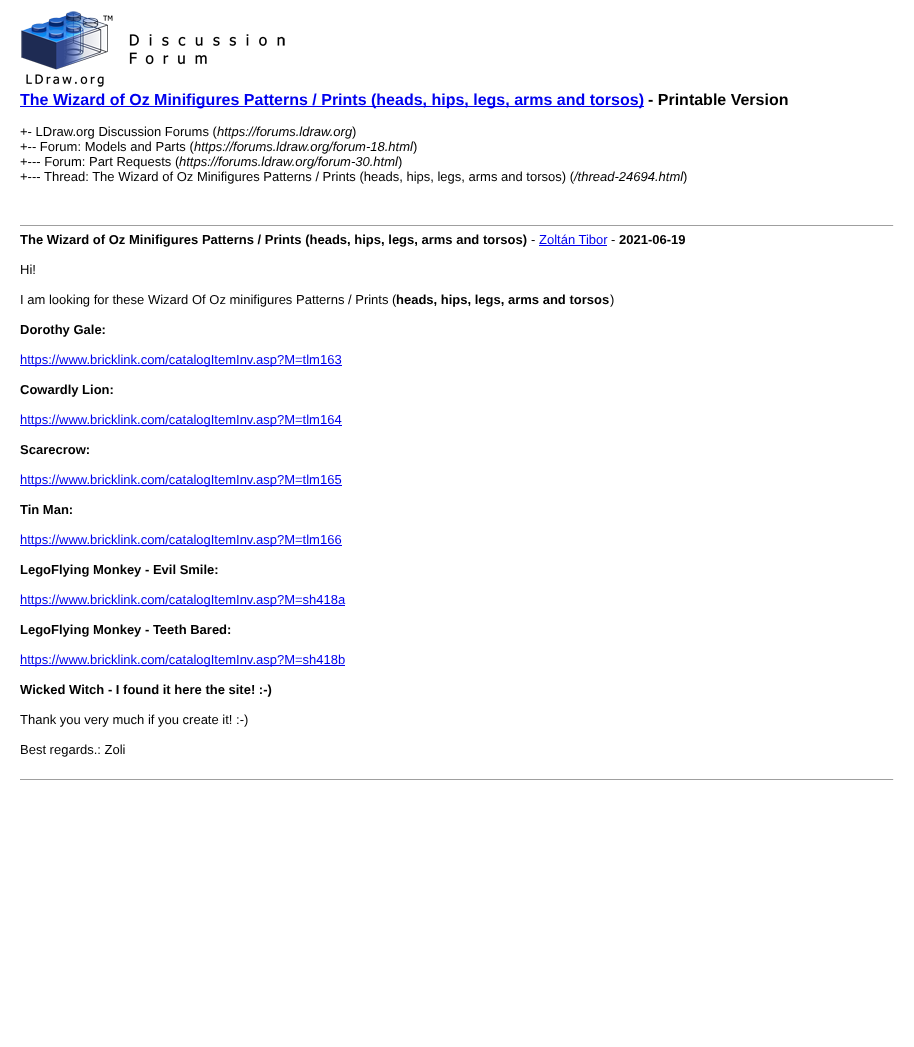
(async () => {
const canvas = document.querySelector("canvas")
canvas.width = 914
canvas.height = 1047
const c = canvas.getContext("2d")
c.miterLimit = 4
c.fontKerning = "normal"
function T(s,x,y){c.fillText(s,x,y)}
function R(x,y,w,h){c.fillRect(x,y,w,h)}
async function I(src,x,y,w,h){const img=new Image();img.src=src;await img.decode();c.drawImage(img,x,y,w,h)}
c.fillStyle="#fff"
R(0,0,914,1047)
await I("1.png",21,11,264,76)
c.fillStyle="#00e"
R(20,106,624,1)
c.font="bold 16px Liberation Sans"
T("The Wizard of Oz Minifigures Patterns / Prints (heads, hips, legs, arms and torsos)",20,105)
c.fillStyle="#000"
T("- Printable Version",648,105)
c.font="13px Liberation Sans"
T("+- LDraw.org Discussion Forums (",20,136)
c.font="italic 13px Liberation Sans"
T("https://forums.ldraw.org",217,136)
c.font="13px Liberation Sans"
T(")",352,136)
T("+-- Forum: Models and Parts (",20,151)
c.font="italic 13px Liberation Sans"
T("https://forums.ldraw.org/forum-18.html",194,151)
c.font="13px Liberation Sans"
T(")",413,151)
T("+--- Forum: Part Requests (",20,166)
c.font="italic 13px Liberation Sans"
T("https://forums.ldraw.org/forum-30.html",179,166)
c.font="13px Liberation Sans"
T(")",398,166)
T("+--- Thread: The Wizard of Oz Minifigures Patterns / Prints (heads, hips, legs, arms and torsos) (",20,181)
c.font="italic 13px Liberation Sans"
T("/thread-24694.html",574,181)
c.font="13px Liberation Sans"
T(")",683,181)
c.fillStyle="#9f9f9f"
R(20,225,874,1)
c.fillStyle="#eee"
R(893,225,1,1)
c.font="bold 13px Liberation Sans"
c.fillStyle="#000"
T("The Wizard of Oz Minifigures Patterns / Prints (heads, hips, legs, arms and torsos)",20,244)
c.font="13px Liberation Sans"
T("-",531,244)
c.fillStyle="#00e"
T("Zoltán Tibor",539,244)
R(539,245,68,1)
c.fillStyle="#000"
T("-",611,244)
c.font="bold 13px Liberation Sans"
T("2021-06-19",619,244)
c.font="13px Liberation Sans"
T("Hi!",20,274)
T("I am looking for these Wizard Of Oz minifigures Patterns / Prints (",20,304)
c.font="bold 13px Liberation Sans"
T("heads, hips, legs, arms and torsos",396,304)
c.font="13px Liberation Sans"
T(")",610,304)
c.font="bold 13px Liberation Sans"
T("Dorothy Gale:",20,334)
c.fillStyle="#00e"
R(20,365,322,1)
c.font="13px Liberation Sans"
T("https://www.bricklink.com/catalogItemInv.asp?M=tlm163",20,364)
c.font="bold 13px Liberation Sans"
c.fillStyle="#000"
T("Cowardly Lion:",20,394)
c.fillStyle="#00e"
R(20,425,322,1)
c.font="13px Liberation Sans"
T("https://www.bricklink.com/catalogItemInv.asp?M=tlm164",20,424)
c.font="bold 13px Liberation Sans"
c.fillStyle="#000"
T("Scarecrow:",20,454)
c.fillStyle="#00e"
R(20,485,322,1)
c.font="13px Liberation Sans"
T("https://www.bricklink.com/catalogItemInv.asp?M=tlm165",20,484)
c.font="bold 13px Liberation Sans"
c.fillStyle="#000"
T("Tin Man:",20,514)
c.fillStyle="#00e"
R(20,545,322,1)
c.font="13px Liberation Sans"
T("https://www.bricklink.com/catalogItemInv.asp?M=tlm166",20,544)
c.font="bold 13px Liberation Sans"
c.fillStyle="#000"
T("LegoFlying Monkey - Evil Smile:",20,574)
c.fillStyle="#00e"
R(20,605,325,1)
c.font="13px Liberation Sans"
T("https://www.bricklink.com/catalogItemInv.asp?M=sh418a",20,604)
c.font="bold 13px Liberation Sans"
c.fillStyle="#000"
T("LegoFlying Monkey - Teeth Bared:",20,634)
c.fillStyle="#00e"
R(20,665,325,1)
c.font="13px Liberation Sans"
T("https://www.bricklink.com/catalogItemInv.asp?M=sh418b",20,664)
c.font="bold 13px Liberation Sans"
c.fillStyle="#000"
T("Wicked Witch - I found it here the site! :-)",20,694)
c.font="13px Liberation Sans"
T("Thank you very much if you create it! :-)",20,724)
T("Best regards.: Zoli",20,754)
c.fillStyle="#9f9f9f"
R(20,779,874,1)
c.fillStyle="#eee"
R(893,779,1,1)
})()
